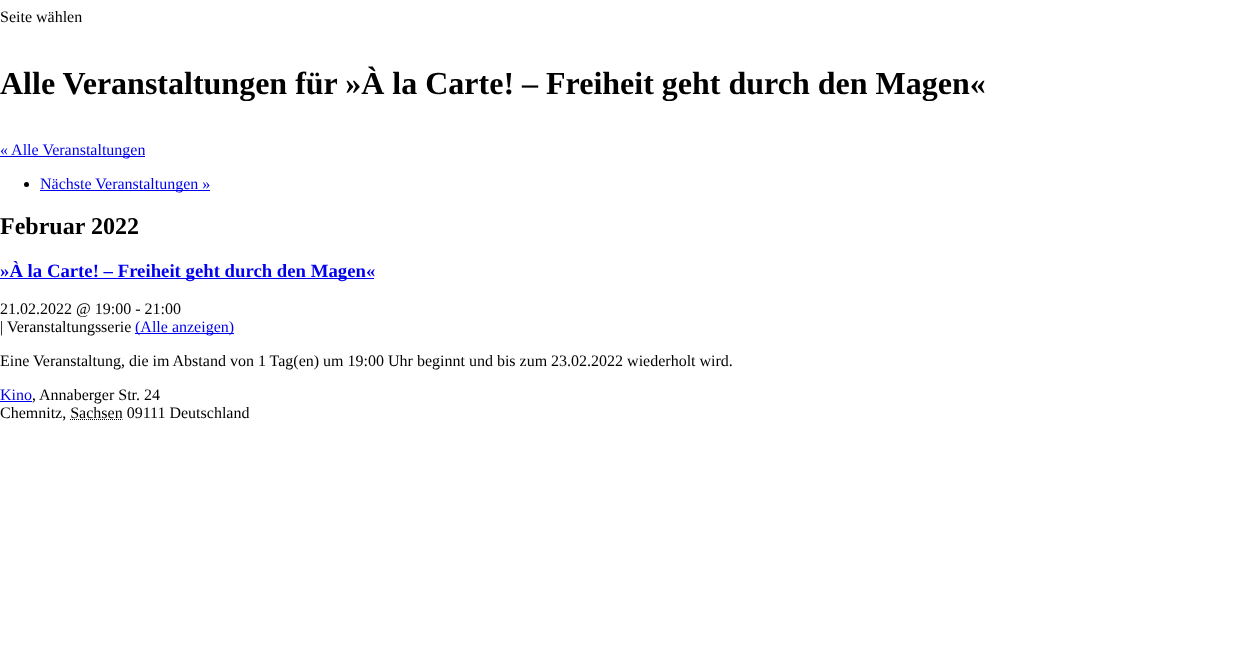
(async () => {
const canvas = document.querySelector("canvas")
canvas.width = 1258
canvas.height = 669
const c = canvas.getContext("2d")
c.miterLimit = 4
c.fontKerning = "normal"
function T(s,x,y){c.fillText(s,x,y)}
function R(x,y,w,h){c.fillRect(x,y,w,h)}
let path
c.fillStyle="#fff"
R(0,0,1258,669)
c.font="16px Liberation Serif"
c.fillStyle="#000"
T("Seite wählen",0,22)
c.font="bold 32px Liberation Serif"
T("Alle Veranstaltungen für »À la Carte! – Freiheit geht durch den Magen«",0,94)
c.fillStyle="#00e"
R(0,156,145,1)
c.font="16px Liberation Serif"
T("« Alle Veranstaltungen",0,155)
c.fillStyle="#000"
c.beginPath()
c.arc(26.5,184.5,2.5,0,7)
c.fill()
c.fillStyle="#00e"
R(40,190,170,1)
T("Nächste Veranstaltungen »",40,189)
c.font="bold 24px Liberation Serif"
c.fillStyle="#000"
T("Februar 2022",0,234)
c.fillStyle="#00e"
R(0,278,374,1)
c.font="bold 18.75px Liberation Serif"
T("»À la Carte! – Freiheit geht durch den Magen«",0,277)
c.font="16px Liberation Serif"
c.fillStyle="#000"
T("21.02.2022 @ 19:00 - 21:00",0,314)
T("| Veranstaltungsserie",0,332)
c.fillStyle="#00e"
R(135,333,99,1)
T("(Alle anzeigen)",135,332)
c.fillStyle="#000"
T("Eine Veranstaltung, die im Abstand von 1 Tag(en) um 19:00 Uhr beginnt und bis zum 23.02.2022 wiederholt wird.",0,366)
c.fillStyle="#00e"
T("Kino",0,400)
R(0,401,32,1)
c.fillStyle="#000"
T(",",32,400)
T("Annaberger Str. 24",39,400)
T("Chemnitz, Sachsen 09111 Deutschland",0,418)
path = new Path2D("M70 419.5h52.5")
c.strokeStyle="#000"
c.setLineDash([1,1])
c.stroke(path)
})()
